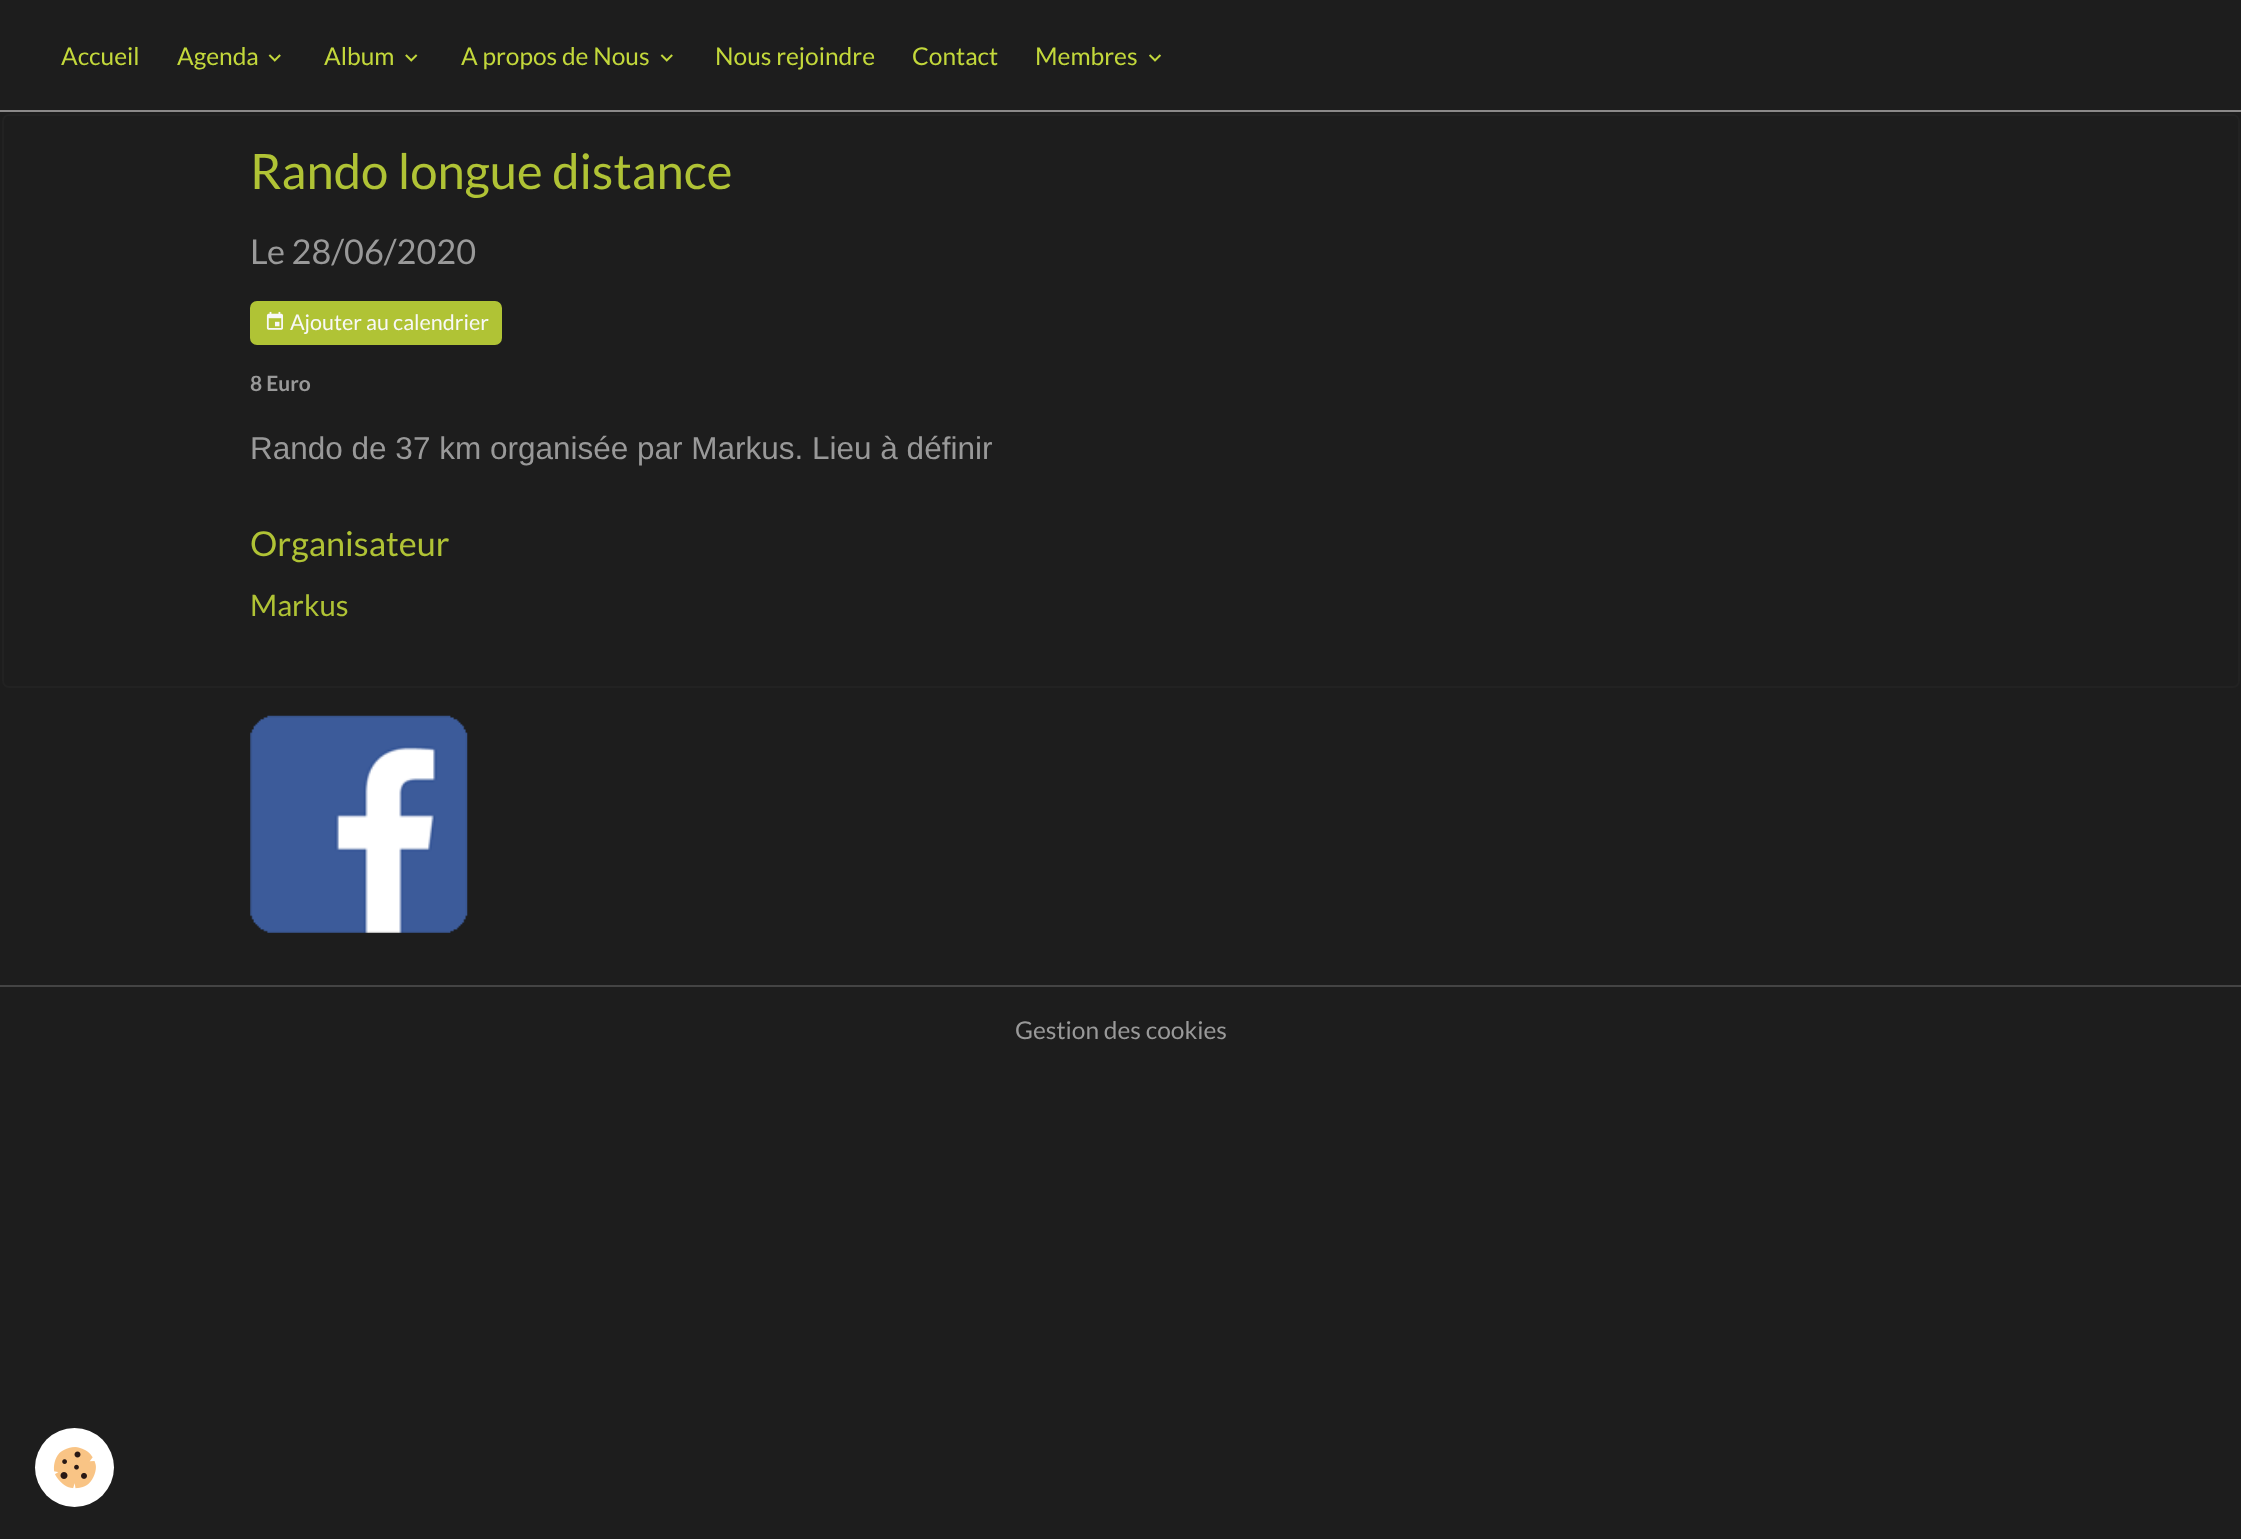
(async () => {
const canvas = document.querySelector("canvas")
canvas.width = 2241
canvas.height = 1539
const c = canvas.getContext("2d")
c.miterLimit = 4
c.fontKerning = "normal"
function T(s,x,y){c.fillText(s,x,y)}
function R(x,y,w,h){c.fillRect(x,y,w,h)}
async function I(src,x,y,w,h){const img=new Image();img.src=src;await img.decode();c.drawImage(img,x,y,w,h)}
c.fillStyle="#1d1d1d"
R(0,0,2241,1539)
c.fillStyle="#8b8989"
R(0,110,2241,2)
c.font="24.5px Lato"
c.fillStyle="#c3d83b"
T("Accueil",61,65)
T("Agenda",177,65)
await I("1.png",268,54,13,8)
T("Album",324,65)
await I("2.png",405,54,13,8)
T("A propos de Nous",461,65)
await I("1.png",660,54,13,8)
T("Nous rejoindre",715,65)
T("Contact",912,65)
T("Membres",1035,65)
await I("3.png",1149,54,12,8)
c.beginPath()
c.roundRect(3,115,2236,572,6)
c.strokeStyle="#222"
c.lineWidth=2
c.stroke()
c.font="49px Lato"
c.fillStyle="#b0c335"
T("Rando longue distance",250,189)
c.font="34.25px Lato"
c.fillStyle="#999"
T("Le 28/06/2020",250,264)
c.fillStyle="#b0c335"
c.beginPath()
c.roundRect(251,302,250,42,6)
c.fill()
c.strokeStyle="#b0c335"
c.stroke()
await I("4.png",266,311,17,19)
c.font="21.5px Lato"
c.fillStyle="#f8f8f8"
T("Ajouter au calendrier",290,330)
c.font="bold 21px Lato"
c.fillStyle="#999"
T("8 Euro",250,391)
c.font="31.5px Liberation Sans"
T("Rando de 37 km organisée par Markus. Lieu à définir",250,459)
c.font="34.25px Lato"
c.fillStyle="#b0c335"
T("Organisateur",250,556)
c.font="29.5px Lato"
T("Markus",250,616)
await I("5.png",250,715,218,218)
c.fillStyle="#444"
R(0,985,2241,2)
c.font="24.5px Lato"
c.fillStyle="#999"
T("Gestion des cookies",1015,1039)
c.fillStyle="#fff"
c.beginPath()
c.arc(74.5,1467.5,39.5,0,7)
c.fill()
await I("6.png",53,1447,43,42)
})()
